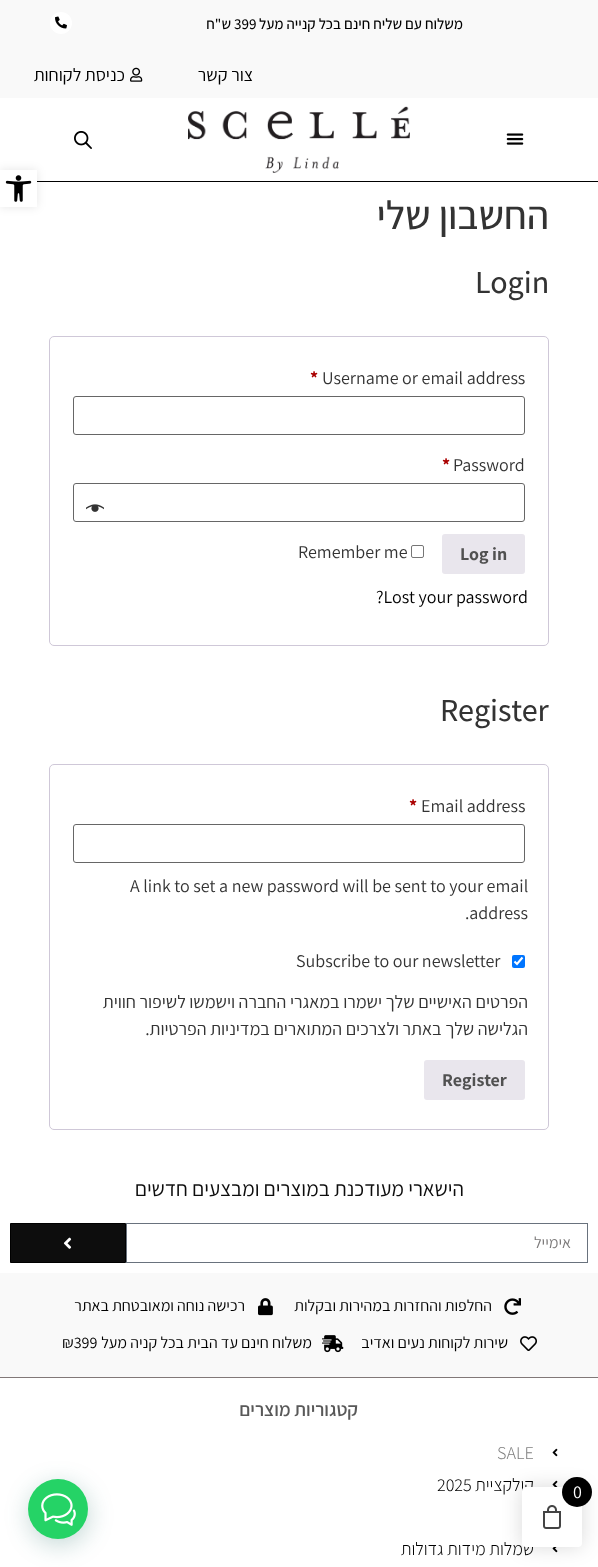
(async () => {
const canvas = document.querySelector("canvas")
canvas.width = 598
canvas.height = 1567
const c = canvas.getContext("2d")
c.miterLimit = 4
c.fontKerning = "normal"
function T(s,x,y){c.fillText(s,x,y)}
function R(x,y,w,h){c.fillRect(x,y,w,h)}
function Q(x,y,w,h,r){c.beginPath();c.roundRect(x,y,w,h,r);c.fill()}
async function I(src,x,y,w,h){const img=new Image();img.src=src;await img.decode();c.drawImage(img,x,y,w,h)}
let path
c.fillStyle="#fff"
R(0,0,598,1567)
c.fillStyle="#f9f9f9"
R(0,0,598,98)
c.direction="rtl"
c.font="500 15px Assistant"
c.fillStyle="#000"
T("משלוח עם שליח חינם בכל קנייה מעל",463,29)
c.direction="ltr"
T("399",234,29)
c.direction="rtl"
T("ש\"ח",231,29)
c.fillStyle="#fff"
c.beginPath()
c.arc(61,23,11,0,7)
c.fill()
await I("1.png",55,16,12,13)
c.font="18px Assistant"
c.fillStyle="#000"
T("צור קשר",253,81)
await I("2.png",130,67,13,15)
T("כניסת לקוחות",125,81)
R(37,181,561,1)
await I("3.png",506,133,18,12)
await I("4.png",188,106,222,67)
await I("5.png",74,131,18,18)
c.fillStyle="#0000001a"
c.filter="blur(5px)"
c.beginPath()
c.rect(0,170,37,37)
c.fill()
c.filter="none"
c.fillStyle="#fff"
R(0,170,37,37)
await I("6.png",5,175,27,27)
c.font="500 40px Assistant"
c.fillStyle="#333"
T("החשבון שלי",549,229)
c.direction="ltr"
c.font="500 32px Assistant"
T("Login",475,293)
c.beginPath()
c.roundRect(49.5,336.5,499,309,4.5)
c.strokeStyle="#cfc8d8"
c.stroke()
c.font="18px Assistant"
T("Username or email address",322,384)
c.font="bold 18px Assistant"
c.fillStyle="#a00"
T("*",310,384)
c.beginPath()
c.roundRect(73.5,396.5,451,38,2.5)
c.strokeStyle="#666"
c.stroke()
c.font="18px Assistant"
c.fillStyle="#333"
T("Password",453,471)
c.font="bold 18px Assistant"
c.fillStyle="#a00"
T("*",442,471)
c.beginPath()
c.roundRect(73.5,483.5,451,38,2.5)
c.stroke()
await I("7.png",86,504,18,8)
c.fillStyle="#e9e6ed"
Q(442,534,83,40,3)
c.fillStyle="#515151"
T("Log in",460,560)
c.beginPath()
c.roundRect(411.5,545.5,12,12,1.5)
c.strokeStyle="#767676"
c.stroke()
c.font="18px Assistant"
c.fillStyle="#333"
T("Remember me",298,558)
c.fillStyle="#000"
T("?Lost your password",376,603)
c.font="500 32px Assistant"
c.fillStyle="#333"
T("Register",440,721)
c.beginPath()
c.roundRect(49.5,764.5,499,365,4.5)
c.strokeStyle="#cfc8d8"
c.stroke()
c.font="18px Assistant"
T("Email address",421,812)
c.font="bold 18px Assistant"
c.fillStyle="#a00"
T("*",409,812)
c.beginPath()
c.roundRect(73.5,824.5,451,38,2.5)
c.strokeStyle="#666"
c.stroke()
c.font="18px Assistant"
c.fillStyle="#333"
T("A link to set a new password will be sent to your email",130,892)
T(".address",465,919)
c.fillStyle="#0075ff"
Q(512,955,13,13,2)
path = new Path2D("M514.5 961.5l2.5 2.5l5.5-6.5")
c.strokeStyle="#fff"
c.lineWidth=2.1
c.stroke(path)
c.fillStyle="#333"
T("Subscribe to our newsletter",296,967)
c.direction="rtl"
T("הפרטים האישיים שלך ישמרו במאגרי החברה וישמשו לשיפור חווית",528,1008)
T("הגלישה שלך באתר ולצרכים המתוארים במדיניות הפרטיות.",528,1035)
c.fillStyle="#e9e6ed"
Q(424,1060,101,40,3)
c.direction="ltr"
c.font="bold 18px Assistant"
c.fillStyle="#515151"
T("Register",442,1086)
c.direction="rtl"
c.font="21px Assistant"
c.fillStyle="#0d0d0d"
T("הישארי מעודכנת במוצרים ומבצעים חדשים",464,1196)
c.strokeStyle="#69727d"
c.lineWidth=1
c.strokeRect(126.5,1223.5,461,39)
c.font="16px Assistant"
c.fillStyle="#7c7a7a"
T("אימייל",571,1248)
c.fillStyle="#0d0d0d"
c.beginPath()
c.rect(10.5,1223.5,115,39)
c.fill()
c.strokeStyle="#000"
c.stroke()
await I("8.png",63,1237,9,12)
c.fillStyle="#f9f9f9"
R(0,1273,598,104)
await I("9.png",504,1298,17,17)
c.fillStyle="#000"
T("החלפות והחזרות במהירות ובקלות",492,1311)
await I("10.png",258,1298,15,18)
T("רכישה נוחה ומאובטחת באתר",245,1311)
await I("11.png",520,1336,17,15)
T("שירות לקוחות נעים ואדיב",508,1348)
await I("12.png",322,1335,22,18)
T("משלוח חינם עד הבית בכל קניה מעל",312,1348)
c.direction="ltr"
T("₪399",62,1348)
c.fillStyle="#817878"
R(0,1377,598,1)
c.direction="rtl"
c.font="600 19px Assistant"
c.fillStyle="#595959"
T("קטגוריות מוצרים",358,1416)
await I("13.png",552,1448,6,9)
c.direction="ltr"
c.font="300 18px Assistant"
c.fillStyle="#808080"
T("SALE",497,1459)
await I("14.png",552,1480,6,7)
c.direction="rtl"
c.fillStyle="#000"
T("קולקציית",534,1491)
c.direction="ltr"
T("2025",437,1491)
await I("15.png",552,1547,6,6)
c.direction="rtl"
T("שמלות מידות גדולות",534,1555)
c.fillStyle="#00000026"
c.filter="blur(10px)"
c.beginPath()
c.roundRect(522,1487,60,60,4)
c.fill()
c.filter="none"
c.fillStyle="#fff"
Q(522,1487,60,60,4)
c.fillStyle="#000"
c.beginPath()
c.arc(577,1492,15,0,7)
c.fill()
c.direction="ltr"
c.font="18px Assistant"
c.fillStyle="#fff"
T("0",573,1498)
await I("16.png",543,1505,18,24)
c.fillStyle="#075e543d"
c.filter="blur(12px)"
c.beginPath()
c.roundRect(29,1485,60,60,30)
c.fill()
c.filter="none"
c.fillStyle="#25d366"
c.beginPath()
c.arc(58,1509,30,0,7)
c.fill()
await I("17.png",41,1493,35,33)
})()
